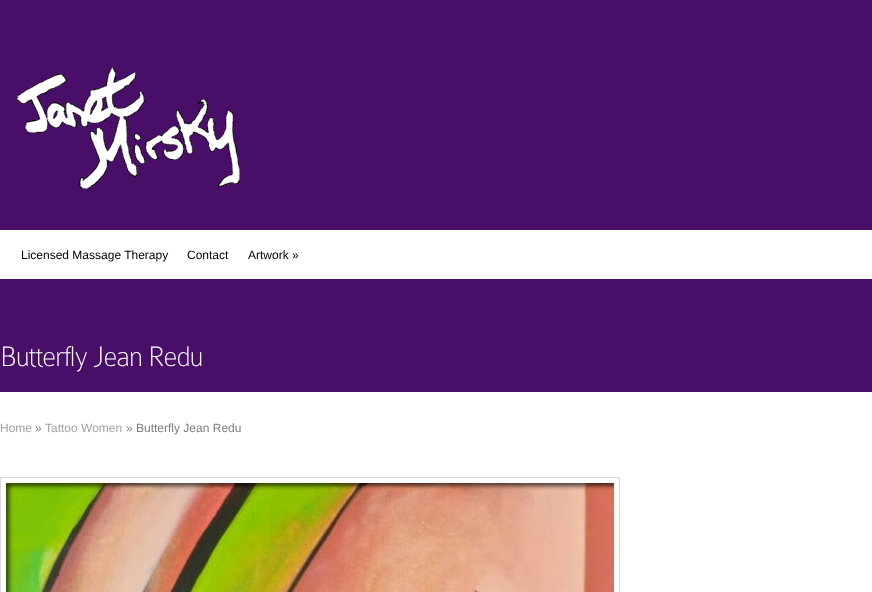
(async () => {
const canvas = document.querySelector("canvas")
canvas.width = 872
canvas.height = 592
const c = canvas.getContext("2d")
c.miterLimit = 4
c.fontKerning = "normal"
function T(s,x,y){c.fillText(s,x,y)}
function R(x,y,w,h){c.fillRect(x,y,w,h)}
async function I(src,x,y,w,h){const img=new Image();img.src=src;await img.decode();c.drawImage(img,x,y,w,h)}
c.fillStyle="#490e67"
R(0,0,872,592)
await I("1.png",17,67,223,122)
c.fillStyle="#fff"
R(0,230,872,49)
c.font="12px Liberation Sans"
c.fillStyle="#000"
T("Licensed Massage Therapy",21,259)
T("Contact",187,259)
T("Artwork »",248,259)
c.letterSpacing="-1px"
c.font="100 30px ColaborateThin"
c.fillStyle="#fff"
T("Butterfly Jean Redu",0,366)
R(0,392,872,200)
c.letterSpacing="0px"
c.font="12px Liberation Sans"
c.fillStyle="#a3a3a3"
T("Home",0,432)
c.fillStyle="#7e7d7d"
T("»",35,432)
c.fillStyle="#a3a3a3"
T("Tattoo Women",45,432)
c.fillStyle="#7e7d7d"
T("» Butterfly Jean Redu",126,432)
c.strokeStyle="#dadada"
c.strokeRect(.5,477.5,619,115)
await I("2.png",6,483,608,109)
await I("3.png",6,483,608,109)
})()
